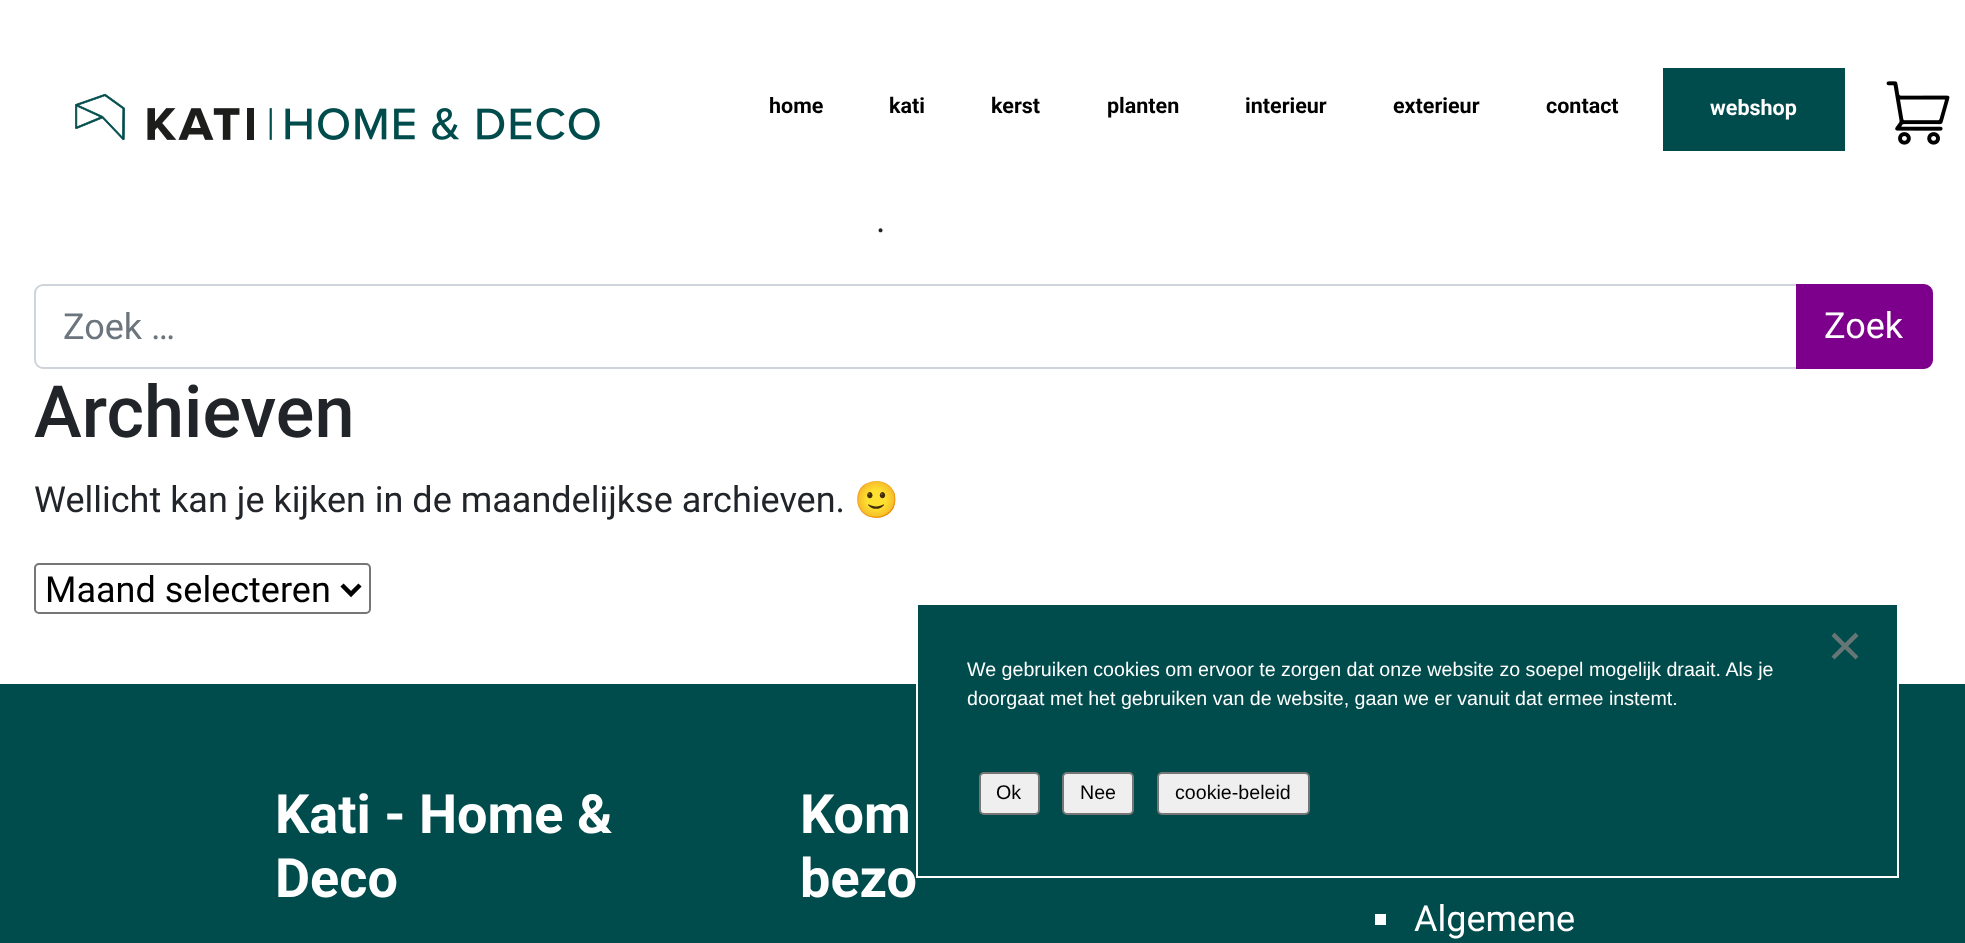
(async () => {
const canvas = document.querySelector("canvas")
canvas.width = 1965
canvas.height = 943
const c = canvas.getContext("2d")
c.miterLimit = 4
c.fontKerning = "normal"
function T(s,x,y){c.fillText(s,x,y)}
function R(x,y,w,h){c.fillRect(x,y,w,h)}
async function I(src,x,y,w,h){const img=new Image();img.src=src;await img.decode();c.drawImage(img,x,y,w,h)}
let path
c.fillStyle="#fff"
R(0,0,1965,943)
await I("1.png",75,93,525,48)
c.font="bold 21.5px Roboto"
c.fillStyle="#000"
T("home",769,113)
T("kati",889,113)
T("kerst",991,113)
T("planten",1107,113)
T("interieur",1245,113)
T("exterieur",1393,113)
T("contact",1546,113)
c.fillStyle="#004b4b"
R(1663,68,182,83)
c.fillStyle="#fff"
T("webshop",1710,115)
await I("2.png",1886,81,64,64)
c.font="36px Roboto"
c.fillStyle="#212529"
T(".",876,232)
c.beginPath()
c.roundRect(35,285,1762,83,[8,0,0,8])
c.strokeStyle="#ced4da"
c.lineWidth=2
c.stroke()
c.fillStyle="#6c757d"
T("Zoek …",63,339)
c.fillStyle="#7c008c"
c.beginPath()
c.roundRect(1797,285,135,83,[0,8,8,0])
c.fill()
c.strokeStyle="#7c008c"
c.stroke()
c.fillStyle="#fff"
T("Zoek",1824,338)
c.font="500 72px Roboto"
c.fillStyle="#212529"
T("Archieven",34,437)
c.font="36px Roboto"
T("Wellicht kan je kijken in de maandelijkse archieven.",34,512)
c.font="36px Noto Color Emoji"
T("🙂",854,512)
c.beginPath()
c.roundRect(35,564,335,49,4)
c.strokeStyle="#767676"
c.stroke()
path = new Path2D("M342 585l9 9l9-9")
c.strokeStyle="#000"
c.lineWidth=4.5
c.stroke(path)
c.font="36px Roboto"
c.fillStyle="#000"
T("Maand selecteren",45,602)
c.fillStyle="#004b4b"
R(0,684,1965,259)
c.font="bold 54px Roboto"
c.fillStyle="#fff"
T("Kati - Home &",275,833)
T("Deco",275,897)
T("Kom",800,833)
T("bezo",800,897)
R(1375,914,11,11)
c.font="36px Roboto"
T("Algemene",1414,931)
c.fillStyle="#004b4b"
R(918,605,979,79)
c.strokeStyle="#fff"
c.lineWidth=2
c.strokeRect(917,604,981,273)
c.fillStyle="#667575"
path = new Path2D("M1855.5 632.5l3 3.5l-24 23.5l-3-3z")
c.fill(path)
path = new Path2D("M1831.5 636l3-3.5l24 24l-3 3z")
c.fill(path)
c.font="19.65px Liberation Sans"
c.fillStyle="#fff"
T("We gebruiken cookies om ervoor te zorgen dat onze website zo soepel mogelijk draait. Als je",967,676)
T("doorgaat met het gebruiken van de website, gaan we er vanuit dat ermee instemt.",967,705)
c.fillStyle="#efefef"
c.beginPath()
c.roundRect(980,773,59,41,4)
c.fill()
c.strokeStyle="#767676"
c.stroke()
c.fillStyle="#000"
T("Ok",996,799)
c.fillStyle="#efefef"
c.beginPath()
c.roundRect(1063,773,70,41,4)
c.fill()
c.stroke()
c.fillStyle="#000"
T("Nee",1080,799)
c.fillStyle="#efefef"
c.beginPath()
c.roundRect(1158,773,151,41,4)
c.fill()
c.stroke()
c.fillStyle="#000"
T("cookie-beleid",1175,799)
})()
